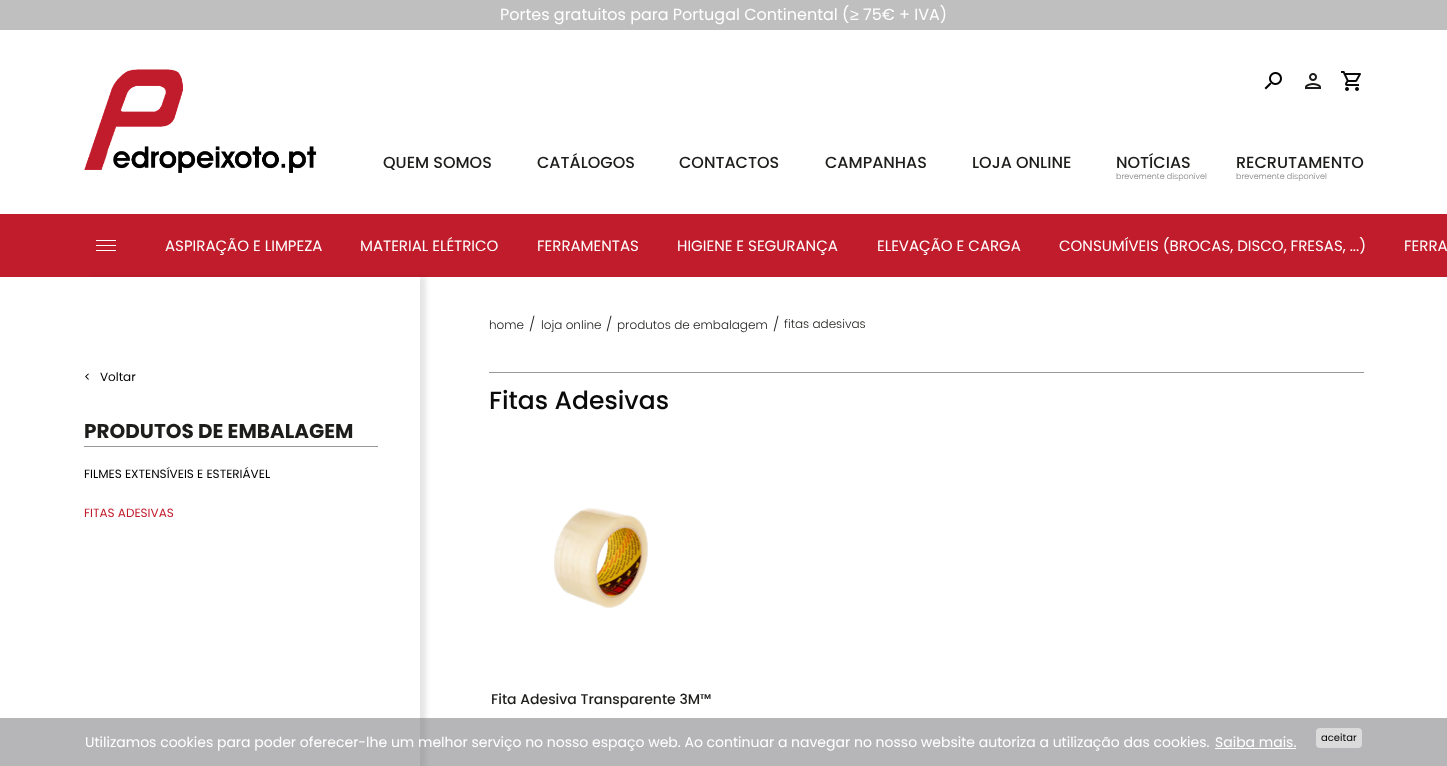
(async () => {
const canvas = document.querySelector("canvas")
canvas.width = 1447
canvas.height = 766
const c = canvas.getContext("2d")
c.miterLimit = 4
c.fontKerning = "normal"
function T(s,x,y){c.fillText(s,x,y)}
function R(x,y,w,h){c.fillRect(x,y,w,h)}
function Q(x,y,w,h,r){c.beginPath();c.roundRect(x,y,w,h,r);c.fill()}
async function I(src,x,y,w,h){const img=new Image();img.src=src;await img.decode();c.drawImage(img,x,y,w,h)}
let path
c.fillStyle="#fff"
R(0,0,1447,766)
c.fillStyle="#bfbfbf"
R(0,0,1447,30)
c.font="16px Poppins"
c.fillStyle="#fff"
T("Portes gratuitos para Portugal Continental (",500,20)
c.font="16px Liberation Sans"
T("≥",850,20)
c.font="16px Poppins"
T("75€ + IVA)",863,20)
await I("1.png",84,69,233,104)
await I("2.png",1264,72,18,18)
await I("3.png",1305,73,16,16)
await I("4.png",1341,71,20,20)
c.font="500 16px Poppins"
c.fillStyle="#1d1d1b"
T("QUEM SOMOS",383,168)
T("CATÁLOGOS",537,168)
T("CONTACTOS",679,168)
T("CAMPANHAS",825,168)
T("LOJA ONLINE",972,168)
T("NOTÍCIAS",1116,168)
c.font="300 8px Poppins"
c.fillStyle="#808080"
T("brevemente disponível",1116,179)
c.font="500 16px Poppins"
c.fillStyle="#1d1d1b"
T("RECRUTAMENTO",1236,168)
c.font="300 8px Poppins"
c.fillStyle="#808080"
T("brevemente disponível",1236,179)
c.fillStyle="#c11c2c"
R(0,214,1447,63)
c.fillStyle="#fff"
R(96,240,20,1)
R(96,250,20,1)
R(96,245,20,1)
c.font="15px Poppins"
T("ASPIRAÇÃO E LIMPEZA",165,251)
T("MATERIAL ELÉTRICO",360,251)
T("FERRAMENTAS",537,251)
T("HIGIENE E SEGURANÇA",677,251)
T("ELEVAÇÃO E CARGA",877,251)
T("CONSUMÍVEIS (BROCAS, DISCO, FRESAS, ...)",1059,251)
T("FERRA",1404,251)
c.save()
path = new Path2D("M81 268h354v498h-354zm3 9h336v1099h-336z")
c.clip(path,"evenodd")
c.fillStyle="#0000001a"
c.filter="blur(2.5px)"
c.beginPath()
c.rect(90,277,336,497)
c.fill()
c.filter="none"
c.restore()
c.font="12px Poppins"
c.fillStyle="#000"
T("<",84,381)
T("Voltar",100,381)
c.fillStyle="#999"
R(84,446,294,1)
c.font="bold 20px Poppins"
c.fillStyle="#1d1d1b"
T("PRODUTOS DE EMBALAGEM",84,438)
c.font="12px Poppins"
c.fillStyle="#000"
T("FILMES EXTENSÍVEIS E ESTERIÁVEL",84,478)
c.fillStyle="#c11c2c"
T("FITAS ADESIVAS",84,517)
c.fillStyle="#9b9797"
R(489,372,875,1)
c.font="300 12px Poppins"
c.fillStyle="#1d1d1b"
T("home",489,329)
c.font="300 14px Poppins"
T("/",529,329)
c.font="300 12px Poppins"
T("loja online",541,329)
c.font="300 14px Poppins"
T("/",606,329)
c.font="300 12px Poppins"
T("produtos de embalagem",617,329)
c.font="300 14px Poppins"
T("/",773,329)
c.font="300 12px Poppins"
T("fitas adesivas",784,328)
c.font="500 25px Poppins"
c.fillStyle="#0a0a0a"
T("Fitas Adesivas",489,409)
await I("5.png",554,508,94,100)
c.font="500 14px Poppins"
c.fillStyle="#1d1d1b"
T("Fita Adesiva Transparente 3M™",491,704)
c.fillStyle="#6d6e7180"
R(0,718,1447,48)
c.font="14px Poppins"
c.fillStyle="#fff"
T("Utilizamos cookies para poder oferecer-lhe um melhor serviço no nosso espaço web. Ao continuar a navegar no nosso website autoriza a utilização das cookies.",85,747)
T("Saiba mais.",1215,747)
R(1215,748,81,1)
c.fillStyle="#dbdbdc"
Q(1316,728,46,20,4)
c.font="10px Poppins"
c.fillStyle="#000"
T("aceitar",1321,741)
})()
